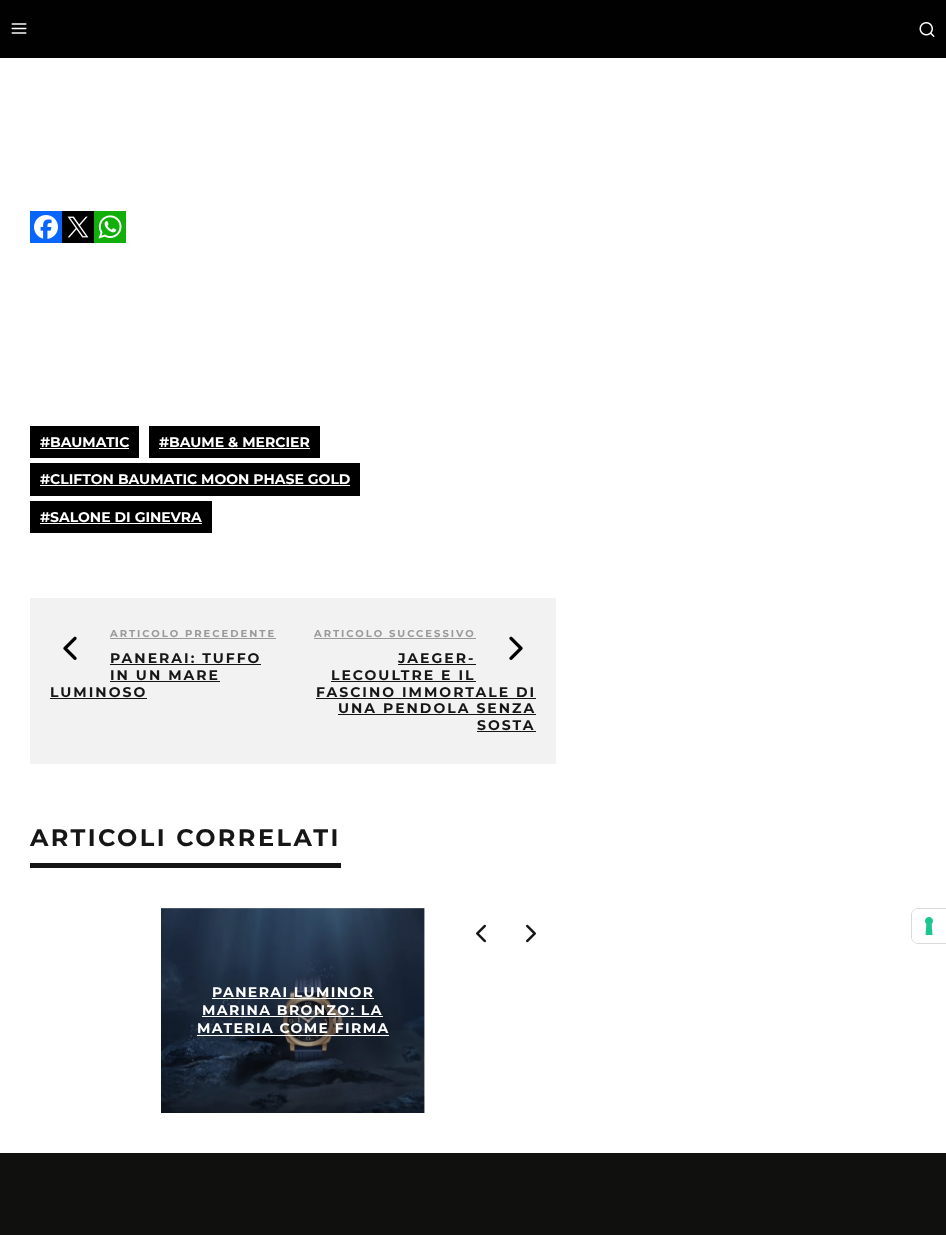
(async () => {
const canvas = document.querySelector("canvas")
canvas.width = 946
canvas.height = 1235
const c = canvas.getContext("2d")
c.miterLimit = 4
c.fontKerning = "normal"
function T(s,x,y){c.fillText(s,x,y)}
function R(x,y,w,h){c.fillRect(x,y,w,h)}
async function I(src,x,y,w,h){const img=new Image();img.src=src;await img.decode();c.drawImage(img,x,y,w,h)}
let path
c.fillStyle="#fff"
R(0,0,946,1235)
c.fillStyle="#010101"
R(0,0,946,58)
await I("1.png",11,23,16,11)
await I("2.png",919,22,16,15)
c.fillStyle="#0866ff"
R(30,211,32,32)
c.fillStyle="#000"
R(62,211,32,32)
c.fillStyle="#12af0a"
R(94,211,32,32)
await I("3.png",34,215,24,24)
await I("4.png",67,216,22,22)
await I("5.png",98,215,24,24)
c.fillStyle="#000"
R(30,426,109,32)
c.font="bold 14px Montserrat"
c.fillStyle="#fff"
T("#BAUMATIC",40,447)
R(40,448,89,1)
c.fillStyle="#000"
R(149,426,171,32)
c.fillStyle="#fff"
T("#BAUME & MERCIER",159,447)
R(159,448,151,1)
c.fillStyle="#000"
R(30,463,330,33)
c.fillStyle="#fff"
T("#CLIFTON BAUMATIC MOON PHASE GOLD",40,484)
R(40,485,310,1)
c.fillStyle="#000"
R(30,501,182,32)
c.fillStyle="#fff"
T("#SALONE DI GINEVRA",40,522)
R(40,523,162,1)
c.fillStyle="#f2f2f2"
R(30,598,526,166)
c.letterSpacing="2px"
c.font="bold 10px Montserrat"
c.fillStyle="#999"
T("ARTICOLO PRECEDENTE",110,637)
R(110,638,166,1)
await I("6.png",63,636,14,24)
c.font="bold 14px Montserrat"
c.fillStyle="#161616"
T("PANERAI: TUFFO",110,663)
R(110,664,151,1)
T("IN UN MARE",110,680)
R(110,681,110,1)
T("LUMINOSO",50,697)
R(50,698,97,1)
c.font="bold 10px Montserrat"
c.fillStyle="#999"
T("ARTICOLO SUCCESSIVO",314,637)
R(314,638,162,1)
c.font="bold 14px Montserrat"
c.fillStyle="#161616"
T("JAEGER-",398,663)
R(398,664,78,1)
await I("7.png",509,636,14,24)
T("LECOULTRE E IL",331,680)
R(331,681,145,1)
T("FASCINO IMMORTALE DI",316,697)
R(316,698,220,1)
T("UNA PENDOLA SENZA",338,713)
R(338,714,198,1)
T("SOSTA",477,730)
R(477,731,59,1)
R(30,863,311,5)
c.letterSpacing="2.4px"
c.font="bold 24px Montserrat"
T("ARTICOLI CORRELATI",30,846)
await I("8.png",476,924,10,19)
await I("9.png",526,924,10,19)
await I("10.png",161,908,264,205)
c.letterSpacing="1.4px"
c.font="bold 14px Montserrat"
c.fillStyle="#fff"
T("PANERAI LUMINOR",212,997)
R(212,998,162,1)
T("MARINA BRONZO: LA",202,1015)
R(202,1016,181,1)
T("MATERIA COME FIRMA",197,1033)
R(197,1035,192,1)
c.fillStyle="#10100f"
R(0,1153,946,82)
path = new Path2D("M918 908.5h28.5v35h-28.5c-3.5 0-6.5-3-6.5-6.5v-22c0-3.5 3-6.5 6.5-6.5z")
c.strokeStyle="#d9d9d9"
c.stroke(path)
c.fillStyle="#fff"
c.beginPath()
c.roundRect(912,909,34,34,[6,0,0,6])
c.fill()
await I("11.png",925,917,8,18)
})()
